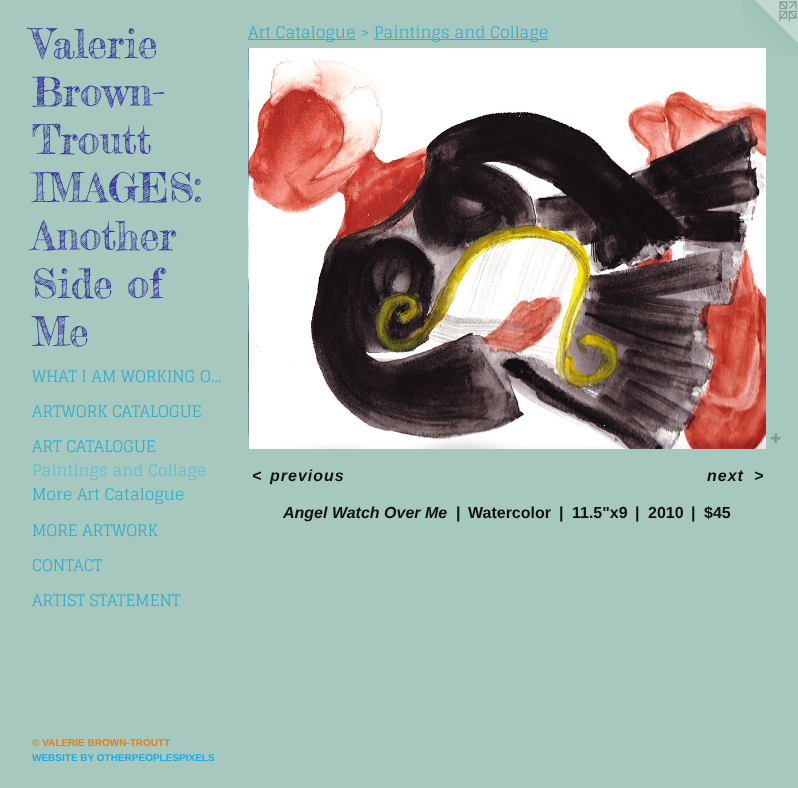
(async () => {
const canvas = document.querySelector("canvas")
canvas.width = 798
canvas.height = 788
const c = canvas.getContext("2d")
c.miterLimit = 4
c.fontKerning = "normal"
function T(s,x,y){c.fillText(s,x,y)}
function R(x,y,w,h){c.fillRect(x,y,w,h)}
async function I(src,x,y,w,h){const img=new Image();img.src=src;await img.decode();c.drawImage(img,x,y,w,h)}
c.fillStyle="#a6c8bf"
R(0,0,798,788)
c.font="40px Fredericka the Great"
c.fillStyle="#39399c"
T("Valerie",32,58)
T("Brown-",32,106)
T("Troutt",32,154)
T("IMAGES:",32,202)
T("Another",32,250)
T("Side of",32,298)
T("Me",32,346)
c.font="16px Glegoo"
c.fillStyle="#34adcb"
T("WHAT I AM WORKING O…",32,382)
T("ARTWORK CATALOGUE",32,417)
T("ART CATALOGUE",32,452)
c.fillStyle="#5dbdd5"
T("Paintings and Collage",32,476)
c.fillStyle="#34adcb"
T("More Art Catalogue",32,500)
T("MORE ARTWORK",32,536)
T("CONTACT",32,571)
T("ARTIST STATEMENT",32,606)
c.font="bold 10px Liberation Sans"
c.fillStyle="#e17f19"
T("© VALERIE BROWN-TROUTT",32,746)
c.fillStyle="#1cabe9"
T("WEBSITE BY OTHERPEOPLESPIXELS",32,761)
c.fillStyle="#34adcb"
R(248,39,108,1)
c.font="16px Glegoo"
T("Art Catalogue >",248,38)
R(374,39,174,1)
T("Paintings and Collage",374,38)
await I("3.png",742,0,56,56)
await I("1.png",248,48,518,401)
await I("2.png",771,433,10,10)
c.letterSpacing="1px"
c.font="italic bold 16px Liberation Sans"
c.fillStyle="#121112"
T("<",252,481)
T("previous",270,481)
T("next",707,481)
T(">",754,481)
c.letterSpacing="0px"
T("Angel Watch Over Me",283,518)
c.font="bold 16px Liberation Sans"
T("|",456,518)
T("Watercolor",468,518)
T("|",559,518)
T("11.5\"x9",572,518)
T("|",635,518)
T("2010",648,518)
T("|",691,518)
T("$45",704,518)
})()
